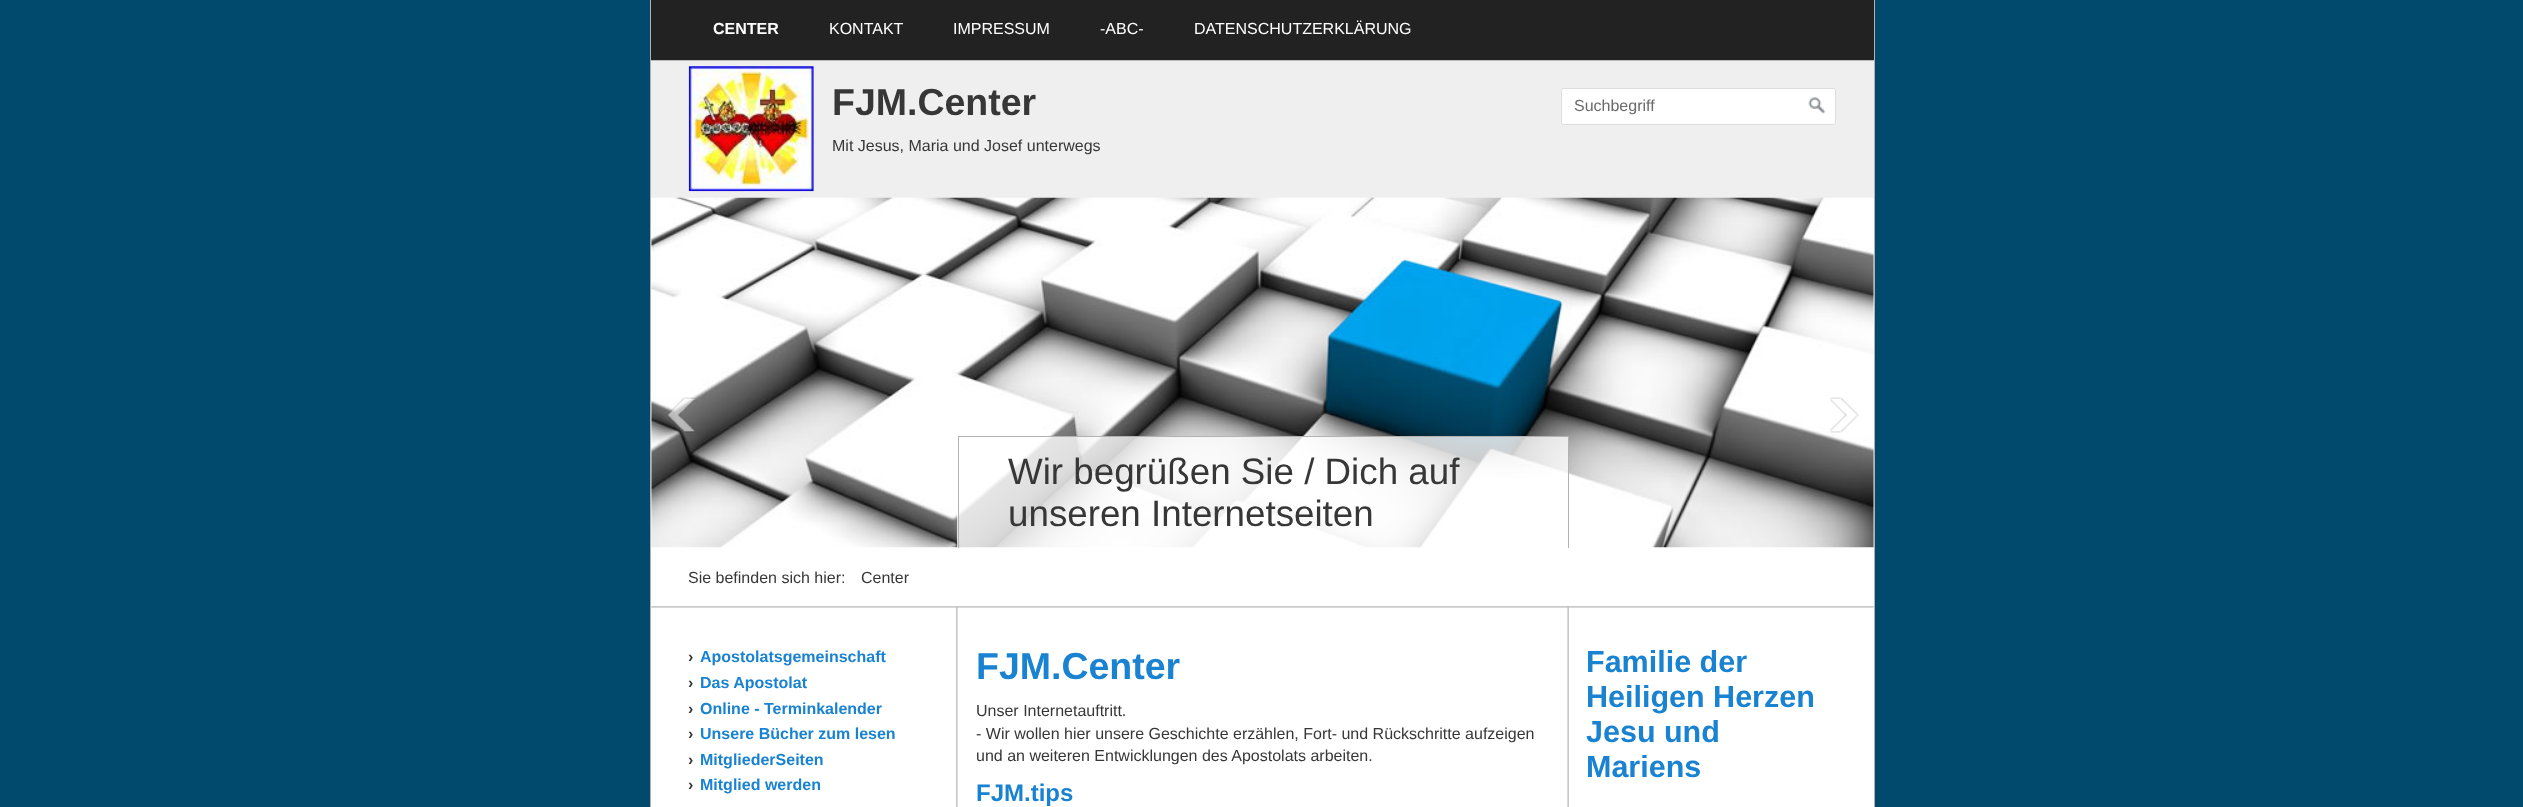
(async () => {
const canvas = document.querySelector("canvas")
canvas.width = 2523
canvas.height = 807
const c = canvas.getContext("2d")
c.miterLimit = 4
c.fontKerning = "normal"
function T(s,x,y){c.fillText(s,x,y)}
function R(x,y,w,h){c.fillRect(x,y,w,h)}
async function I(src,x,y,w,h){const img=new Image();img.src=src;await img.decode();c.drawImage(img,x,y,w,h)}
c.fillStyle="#014a6d"
R(0,0,2523,807)
c.fillStyle="#b2b2b2"
R(1874,0,1,807)
R(650,60,1,747)
c.fillStyle="#222"
R(651,0,1223,60)
c.fillStyle="#bbb"
R(650,60,1225,1)
c.fillStyle="#b2b2b2"
R(650,0,1,61)
c.font="bold 16px Liberation Sans"
c.fillStyle="#fff"
T("CENTER",713,34)
c.font="16px Liberation Sans"
T("KONTAKT",829,34)
T("IMPRESSUM",953,34)
T("-ABC-",1100,34)
T("DATENSCHUTZERKLÄRUNG",1194,34)
c.fillStyle="#efefef"
R(651,61,1223,137)
await I("1.png",688,66,126,126)
c.font="bold 37.5px Liberation Sans"
c.fillStyle="#373737"
T("FJM.Center",832,115)
c.font="16px Liberation Sans"
T("Mit Jesus, Maria und Josef unterwegs",832,151)
c.fillStyle="#fff"
c.beginPath()
c.roundRect(1561.5,88.5,274,36,2)
c.fill()
c.strokeStyle="#ddd"
c.stroke()
c.fillStyle="#6a6a6a"
T("Suchbegriff",1574,111)
await I("2.png",1808,97,18,17)
c.fillStyle="#fff"
R(651,198,1223,609)
await I("5.png",651,197,1223,351)
await I("3.png",666,397,29,36)
await I("4.png",1830,397,29,36)
c.fillStyle="#ffffffcc"
R(957,436,611,112)
c.fillStyle="#b2b2b2"
R(958,436,611,1)
R(1568,436,1,112)
R(958,436,1,112)
c.font="36.75px Liberation Sans"
c.fillStyle="#373737"
T("Wir begrüßen Sie / Dich auf",1008,484)
T("unseren Internetseiten",1008,526)
await I("6.png",651,606,1223,2)
c.font="16px Liberation Sans"
T("Sie befinden sich hier:",688,583)
T("Center",861,583)
await I("7.png",956,607,614,200)
c.font="bold 16px Liberation Sans"
T("›",688,662)
c.fillStyle="#1982d1"
T("Apostolatsgemeinschaft",700,662)
c.fillStyle="#373737"
T("›",688,688)
c.fillStyle="#1982d1"
T("Das Apostolat",700,688)
c.fillStyle="#373737"
T("›",688,714)
c.fillStyle="#1982d1"
T("Online - Terminkalender",700,714)
c.fillStyle="#373737"
T("›",688,739)
c.fillStyle="#1982d1"
T("Unsere Bücher zum lesen",700,739)
c.fillStyle="#373737"
T("›",688,765)
c.fillStyle="#1982d1"
T("MitgliederSeiten",700,765)
c.fillStyle="#373737"
T("›",688,790)
c.fillStyle="#1982d1"
T("Mitglied werden",700,790)
c.font="bold 37.5px Liberation Sans"
T("FJM.Center",976,679)
c.font="16px Liberation Sans"
c.fillStyle="#373737"
T("Unser Internetauftritt.",976,716)
T("- Wir wollen hier unsere Geschichte erzählen, Fort- und Rückschritte aufzeigen",976,739)
T("und an weiteren Entwicklungen des Apostolats arbeiten.",976,761)
c.font="bold 24px Liberation Sans"
c.fillStyle="#1982d1"
T("FJM.tips",976,801)
c.font="bold 30.5px Liberation Sans"
T("Familie der",1586,672)
T("Heiligen Herzen",1586,707)
T("Jesu und",1586,742)
T("Mariens",1586,777)
})()
